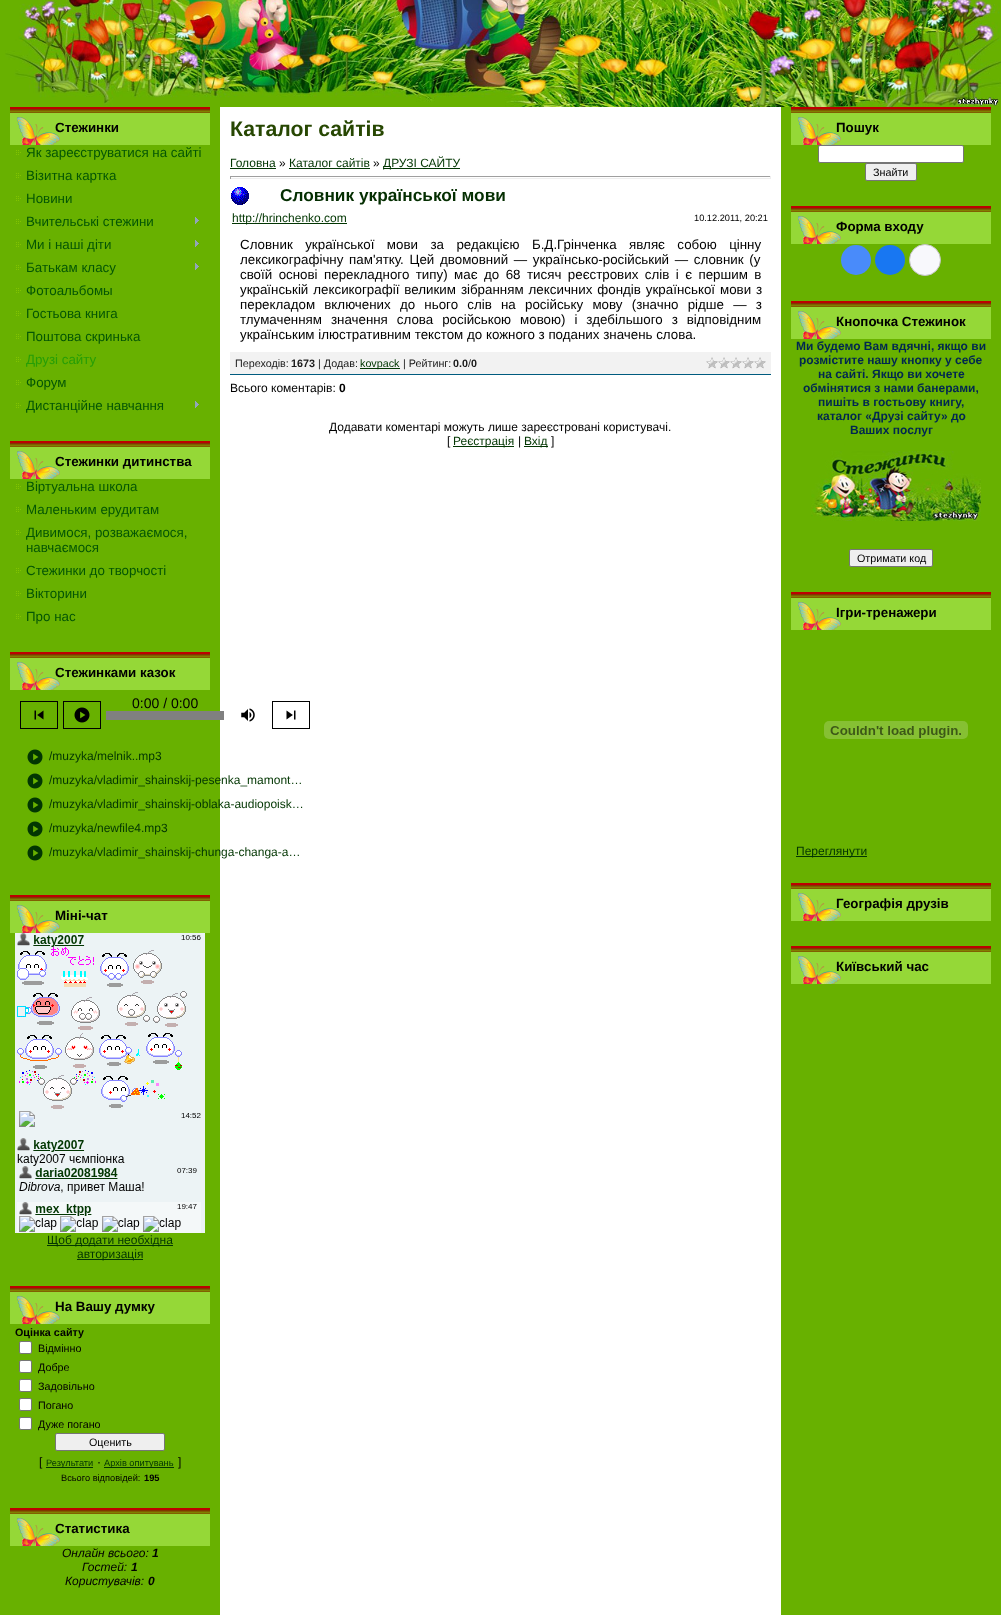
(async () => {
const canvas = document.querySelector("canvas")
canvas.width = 1001
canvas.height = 1615
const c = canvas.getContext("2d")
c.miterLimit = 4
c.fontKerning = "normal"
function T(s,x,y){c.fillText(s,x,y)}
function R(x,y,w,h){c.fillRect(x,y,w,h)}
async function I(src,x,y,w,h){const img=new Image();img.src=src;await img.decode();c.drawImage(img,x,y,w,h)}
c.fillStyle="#68b100"
R(0,0,1001,1615)
await I("1.png",5,0,996,107)
await I("2.png",10,107,200,38)
c.font="bold 13.35px Liberation Sans"
c.fillStyle="#000"
T("Стежинки",55,132)
await I("3.png",16,150,5,5)
c.font="13.35px Liberation Sans"
c.fillStyle="#045604"
T("Як зареєструватися на сайті",26,157)
await I("3.png",16,173,5,5)
T("Візитна картка",26,180)
await I("3.png",16,196,5,5)
T("Новини",26,203)
await I("3.png",16,219,5,5)
T("Вчительські стежини",26,226)
await I("4.png",195,217,4,7)
await I("3.png",16,242,5,5)
T("Ми і наші діти",26,249)
await I("4.png",195,240,4,7)
await I("3.png",16,265,5,5)
T("Батькам класу",26,272)
await I("4.png",195,263,4,7)
await I("3.png",16,288,5,5)
T("Фотоальбомы",26,295)
await I("3.png",16,311,5,5)
T("Гостьова книга",26,318)
await I("3.png",16,334,5,5)
T("Поштова скринька",26,341)
await I("3.png",16,357,5,5)
c.fillStyle="#269e06"
T("Друзі сайту",26,364)
await I("3.png",16,380,5,5)
c.fillStyle="#045604"
T("Форум",26,387)
await I("3.png",16,403,5,5)
T("Дистанційне навчання",26,410)
await I("4.png",195,401,4,7)
await I("2.png",10,441,200,38)
c.font="bold 13.35px Liberation Sans"
c.fillStyle="#000"
T("Стежинки дитинства",55,466)
await I("3.png",16,484,5,5)
c.font="13.35px Liberation Sans"
c.fillStyle="#045604"
T("Віртуальна школа",26,491)
await I("3.png",16,507,5,5)
T("Маленьким ерудитам",26,514)
await I("3.png",16,530,5,5)
T("Дивимося, розважаємося,",26,537)
T("навчаємося",26,552)
await I("3.png",16,568,5,5)
T("Стежинки до творчості",26,575)
await I("3.png",16,591,5,5)
T("Вікторини",26,598)
await I("3.png",16,614,5,5)
T("Про нас",26,621)
await I("2.png",10,652,200,38)
c.font="bold 13.35px Liberation Sans"
c.fillStyle="#000"
T("Стежинками казок",55,677)
c.strokeStyle="#000"
c.strokeRect(20.5,701.5,37,27)
await I("5.png",34,710,10,10)
c.strokeRect(63.5,701.5,37,27)
await I("6.png",74,707,16,16)
c.font="14px Liberation Sans"
T("0:00 / 0:00",132,708)
c.fillStyle="#fff"
R(220,107,561,1508)
c.fillStyle="#808080"
R(106,711,118,9)
await I("7.png",241,708,14,14)
c.strokeRect(272.5,701.5,37,27)
await I("8.png",286,710,10,10)
await I("9.png",27,749,16,16)
c.font="12px Liberation Sans"
c.fillStyle="#023602"
T("/muzyka/melnik..mp3",49,760)
await I("9.png",27,773,16,16)
T("/muzyka/vladimir_shainskij-pesenka_mamont…",49,784)
await I("9.png",27,797,16,16)
T("/muzyka/vladimir_shainskij-oblaka-audiopoisk…",49,808)
await I("9.png",27,821,16,16)
T("/muzyka/newfile4.mp3",49,832)
await I("9.png",27,845,16,16)
T("/muzyka/vladimir_shainskij-chunga-changa-a…",49,856)
await I("2.png",10,895,200,38)
c.font="bold 13.35px Liberation Sans"
c.fillStyle="#000"
T("Міні-чат",55,920)
await I("10.png",15,933,190,300)
c.fillStyle="#023602"
R(47,1245,126,1)
c.font="12px Liberation Sans"
T("Щоб додати необхідна",47,1244)
R(77,1259,66,1)
T("авторизація",77,1258)
await I("2.png",10,1286,200,38)
c.font="bold 13.35px Liberation Sans"
c.fillStyle="#000"
T("На Вашу думку",55,1311)
c.font="bold 10.75px Liberation Sans"
T("Оцінка сайту",15,1336)
c.fillStyle="#fff"
c.beginPath()
c.roundRect(19.5,1341.5,12,12,1.5)
c.fill()
c.strokeStyle="#767676"
c.stroke()
c.font="10.75px Liberation Sans"
c.fillStyle="#000"
T("Відмінно",38,1352)
c.fillStyle="#fff"
c.beginPath()
c.roundRect(19.5,1360.5,12,12,1.5)
c.fill()
c.stroke()
c.fillStyle="#000"
T("Добре",38,1371)
c.fillStyle="#fff"
c.beginPath()
c.roundRect(19.5,1379.5,12,12,1.5)
c.fill()
c.stroke()
c.fillStyle="#000"
T("Задовільно",38,1390)
c.fillStyle="#fff"
c.beginPath()
c.roundRect(19.5,1398.5,12,12,1.5)
c.fill()
c.stroke()
c.fillStyle="#000"
T("Погано",38,1409)
c.fillStyle="#fff"
c.beginPath()
c.roundRect(19.5,1417.5,12,12,1.5)
c.fill()
c.stroke()
c.fillStyle="#000"
T("Дуже погано",38,1428)
c.fillStyle="#efefef"
c.beginPath()
c.roundRect(55.5,1433.5,109,17,1.5)
c.fill()
c.stroke()
c.fillStyle="#000"
T("Оценить",89,1446)
c.font="12px Liberation Sans"
T("[",39,1466)
c.fillStyle="#023602"
R(46,1467,47,1)
c.font="9.25px Liberation Sans"
T("Результати",46,1466)
c.font="12px Liberation Sans"
c.fillStyle="#000"
T("·",97,1466)
c.fillStyle="#023602"
R(104,1467,70,1)
c.font="9.25px Liberation Sans"
T("Архів опитувань",104,1466)
c.font="12px Liberation Sans"
c.fillStyle="#000"
T("]",178,1466)
c.font="9.25px Liberation Sans"
T("Всього відповідей:",61,1481)
c.font="bold 9.25px Liberation Sans"
T("195",144,1481)
await I("2.png",10,1508,200,38)
c.font="bold 13.35px Liberation Sans"
T("Статистика",55,1533)
c.font="italic 12px Liberation Sans"
T("Онлайн всього:",62,1557)
c.font="italic bold 12px Liberation Sans"
T("1",152,1557)
c.font="italic 12px Liberation Sans"
T("Гостей:",82,1571)
c.font="italic bold 12px Liberation Sans"
T("1",131,1571)
c.font="italic 12px Liberation Sans"
T("Користувачів:",65,1585)
c.font="italic bold 12px Liberation Sans"
T("0",148,1585)
c.font="bold 21.25px Liberation Sans"
c.fillStyle="#274702"
T("Каталог сайтів",230,136)
c.font="12px Liberation Sans"
c.fillStyle="#023602"
T("Головна",230,167)
R(230,168,46,1)
c.fillStyle="#000"
T("»",279,167)
c.fillStyle="#023602"
T("Каталог сайтів",289,167)
R(289,168,81,1)
c.fillStyle="#000"
T("»",373,167)
c.fillStyle="#023602"
R(383,168,77,1)
T("ДРУЗІ САЙТУ",383,167)
c.fillStyle="#9f9f9f"
R(230,176,541,1)
c.fillStyle="#eee"
R(770,176,1,3)
R(230,178,541,1)
c.fillStyle="#9f9f9f"
R(230,176,1,3)
await I("11.png",231,187,18,18)
c.font="bold 17.3px Liberation Sans"
c.fillStyle="#042e01"
T("Словник української мови",280,201)
c.fillStyle="#005b7f"
R(230,374,541,1)
c.fillStyle="#023602"
R(232,223,115,1)
c.font="12px Liberation Sans"
T("http://hrinchenko.com",232,222)
c.font="9.25px Liberation Sans"
c.fillStyle="#000"
T("10.12.2011, 20:21",694,221)
c.wordSpacing="8.75px"
c.font="13.35px Liberation Sans"
T("Словник української мови за редакцією Б.Д.Грінченка являє собою цінну",240,249)
c.wordSpacing="2px"
T("лексикографічну пам'ятку. Цей двомовний — українсько-російський — словник (у",240,264)
c.wordSpacing="2.75px"
T("своїй основі перекладного типу) має до 68 тисяч реєстрових слів і є першим в",240,279)
c.wordSpacing="1.25px"
T("українській лексикографії великим зібранням лексичних фондів української мови з",240,294)
c.wordSpacing="5.5px"
T("перекладом включених до нього слів на російську мову (значно рідше — з",240,309)
c.wordSpacing="5.25px"
T("тлумаченням значення слова російською мовою) і здебільшого з відповідним",240,324)
c.wordSpacing="0px"
T("українським ілюстративним текстом до кожного з поданих значень слова.",240,339)
c.fillStyle="#f2f2f2"
R(230,352,541,22)
c.font="10.75px Liberation Sans"
c.fillStyle="#1a1a1a"
T("Переходів:",235,367)
c.font="bold 10.75px Liberation Sans"
T("1673",291,367)
c.font="10.75px Liberation Sans"
T("| Додав:",318,367)
c.fillStyle="#023602"
R(360,368,40,1)
T("kovpack",360,367)
c.fillStyle="#1a1a1a"
T("| Рейтинг:",403,367)
c.font="bold 10.75px Liberation Sans"
T("0.0",453,367)
c.font="10.75px Liberation Sans"
T("/",468,367)
c.font="bold 10.75px Liberation Sans"
T("0",471,367)
await I("12.png",706,357,60,12)
c.font="12px Liberation Sans"
c.fillStyle="#000"
T("Всього коментарів:",230,392)
c.font="bold 12px Liberation Sans"
T("0",339,392)
c.font="12px Liberation Sans"
T("Додавати коментарі можуть лише зареєстровані користувачі.",329,431)
T("[",447,445)
c.fillStyle="#023602"
R(453,446,61,1)
T("Реєстрація",453,445)
c.fillStyle="#000"
T("|",518,445)
c.fillStyle="#023602"
R(524,446,24,1)
T("Вхід",524,445)
c.fillStyle="#000"
T("]",551,445)
await I("2.png",791,107,200,38)
c.font="bold 13.35px Liberation Sans"
T("Пошук",836,132)
c.fillStyle="#fff"
c.beginPath()
c.roundRect(818.5,145.5,145,17,1.5)
c.fill()
c.stroke()
c.fillStyle="#efefef"
c.beginPath()
c.roundRect(865.5,163.5,51,17,1.5)
c.fill()
c.stroke()
c.font="10.75px Liberation Sans"
c.fillStyle="#000"
T("Знайти",873,176)
await I("2.png",791,206,200,38)
c.font="bold 13.35px Liberation Sans"
T("Форма входу",836,231)
c.fillStyle="#498bfa"
c.beginPath()
c.arc(856,260,15,0,7)
c.fill()
c.fillStyle="#1877f2"
c.beginPath()
c.arc(890,260,15,0,7)
c.fill()
c.fillStyle="#f8f8fc"
c.beginPath()
c.arc(925,260,15.5,0,7)
c.fill()
c.strokeStyle="#c4c4c4"
c.stroke()
await I("2.png",791,301,200,38)
c.fillStyle="#000"
T("Кнопочка Стежинок",836,326)
c.font="bold 12px Liberation Sans"
c.fillStyle="#002750"
T("Ми будемо Вам вдячні, якщо ви",796,350)
T("розмістите нашу кнопку у себе",799,364)
T("на сайті. Якщо ви хочете",818,378)
T("обмінятися з нами банерами,",803,392)
T("пишіть в гостьову книгу,",818,406)
T("каталог «Друзі сайту» до",817,420)
T("Ваших послуг",850,434)
await I("13.png",811,451,170,70)
c.fillStyle="#efefef"
c.beginPath()
c.roundRect(849.5,549.5,83,17,1.5)
c.fill()
c.strokeStyle="#767676"
c.stroke()
c.font="10.75px Liberation Sans"
c.fillStyle="#000"
T("Отримати код",857,562)
await I("2.png",791,592,200,38)
c.font="bold 13.35px Liberation Sans"
T("Ігри-тренажери",836,617)
await I("14.png",824,721,144,18)
c.fillStyle="#023602"
R(796,856,71,1)
c.font="12px Liberation Sans"
T("Переглянути",796,855)
await I("2.png",791,883,200,38)
c.font="bold 13.35px Liberation Sans"
c.fillStyle="#000"
T("Географія друзів",836,908)
await I("2.png",791,946,200,38)
T("Київський час",836,971)
})()
